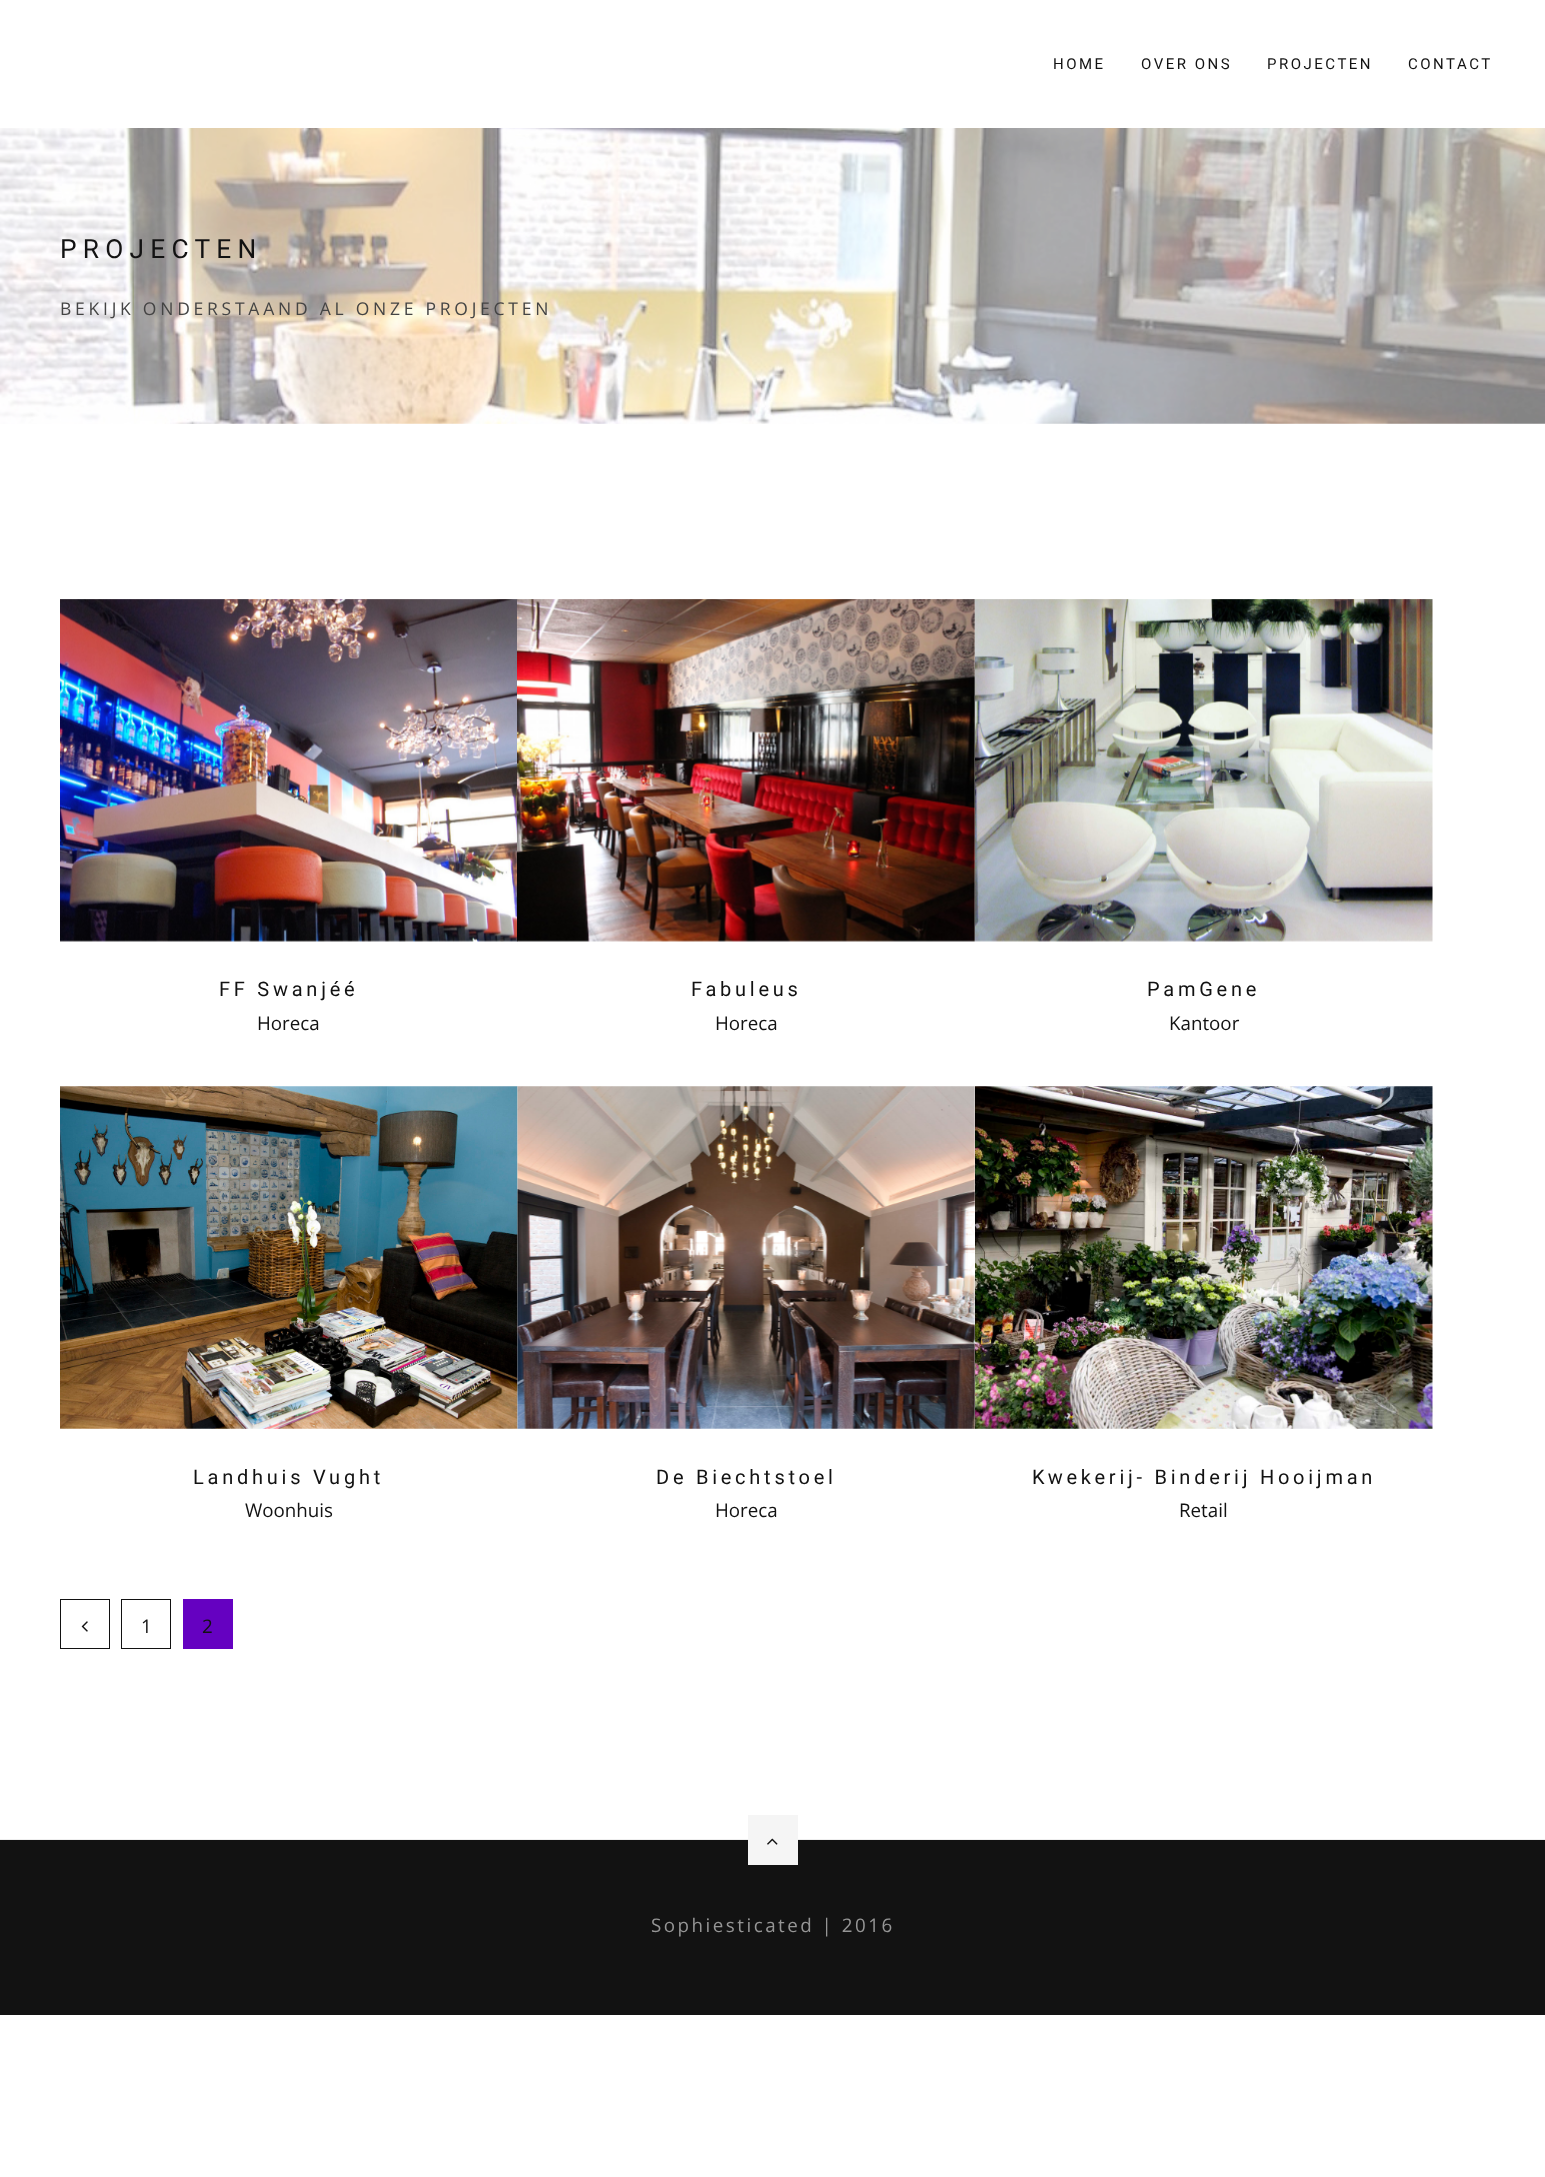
(async () => {
const canvas = document.querySelector("canvas")
canvas.width = 1545
canvas.height = 2177
const c = canvas.getContext("2d")
c.miterLimit = 4
c.fontKerning = "normal"
function T(s,x,y){c.fillText(s,x,y)}
function R(x,y,w,h){c.fillRect(x,y,w,h)}
async function I(src,x,y,w,h){const img=new Image();img.src=src;await img.decode();c.drawImage(img,x,y,w,h)}
c.fillStyle="#fff"
R(0,0,1545,2177)
c.letterSpacing="2.5px"
c.font="15px Roboto"
c.fillStyle="#121212"
T("HOME",1053,69)
T("OVER ONS",1141,69)
T("PROJECTEN",1267,69)
T("CONTACT",1408,69)
await I("1.png",0,128,1545,296)
c.letterSpacing="6.25px"
c.font="26.25px Roboto"
T("PROJECTEN",60,258)
c.letterSpacing="3.75px"
c.font="17.5px Open Sans"
c.fillStyle="#444"
T("BEKIJK ONDERSTAAND AL ONZE PROJECTEN",60,315)
c.fillStyle="#eee"
R(0,1839,1545,1)
await I("2.png",60,599,458,343)
c.font="20px Roboto"
c.fillStyle="#121212"
T("FF Swanjéé",219,996)
c.letterSpacing="0px"
c.font="18.75px Open Sans"
T("Horeca",257,1030)
await I("3.png",517,599,458,343)
c.letterSpacing="3.75px"
c.font="20px Roboto"
T("Fabuleus",691,996)
c.letterSpacing="0px"
c.font="18.75px Open Sans"
T("Horeca",715,1030)
await I("4.png",975,599,458,343)
c.letterSpacing="3.75px"
c.font="20px Roboto"
T("PamGene",1147,996)
c.letterSpacing="0px"
c.font="18.75px Open Sans"
T("Kantoor",1169,1030)
await I("5.png",60,1086,458,343)
c.letterSpacing="3.75px"
c.font="20px Roboto"
T("Landhuis Vught",193,1484)
c.letterSpacing="0px"
c.font="18.75px Open Sans"
T("Woonhuis",245,1517)
await I("6.png",517,1086,459,343)
c.letterSpacing="3.75px"
c.font="20px Roboto"
T("De Biechtstoel",656,1484)
c.letterSpacing="0px"
c.font="18.75px Open Sans"
T("Horeca",715,1517)
await I("7.png",975,1086,458,343)
c.letterSpacing="3.75px"
c.font="20px Roboto"
T("Kwekerij- Binderij Hooijman",1032,1484)
c.letterSpacing="0px"
c.font="18.75px Open Sans"
T("Retail",1179,1517)
c.strokeStyle="#121212"
c.strokeRect(60.5,1599.5,49,49)
await I("8.png",81,1621,7,11)
c.strokeRect(121.5,1599.5,49,49)
T("1",141,1633)
c.fillStyle="#6501c1"
R(183,1599,50,50)
c.fillStyle="#121212"
T("2",202,1633)
R(0,1840,1545,175)
c.fillStyle="#f5f5f5"
R(748,1815,50,50)
await I("9.png",767,1838,11,7)
c.letterSpacing="2.5px"
c.fillStyle="#959595"
T("Sophiesticated | 2016",651,1932)
})()
